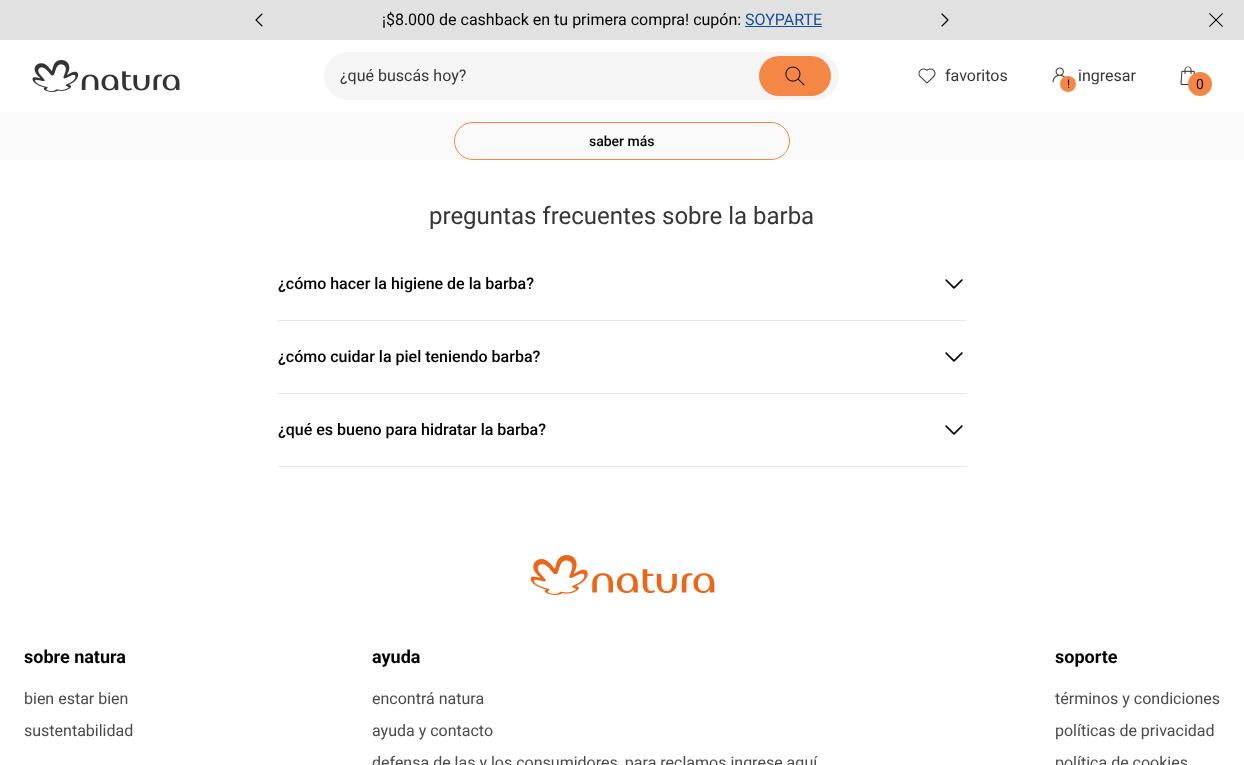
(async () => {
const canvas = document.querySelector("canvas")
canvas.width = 1244
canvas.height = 765
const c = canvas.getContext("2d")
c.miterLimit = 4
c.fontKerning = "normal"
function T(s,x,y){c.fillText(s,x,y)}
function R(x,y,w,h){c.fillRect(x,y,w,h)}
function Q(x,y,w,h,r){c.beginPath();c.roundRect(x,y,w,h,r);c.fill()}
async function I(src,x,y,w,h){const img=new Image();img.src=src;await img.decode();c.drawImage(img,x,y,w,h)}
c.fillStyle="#fafafa"
R(0,0,1244,765)
c.fillStyle="#e1e1e1"
R(0,0,1244,40)
await I("1.png",255,13,8,14)
c.font="16px Roboto"
c.fillStyle="#000"
T("¡$8.000 de cashback en tu primera compra! cupón:",382,25)
c.fillStyle="#154e99"
T("SOYPARTE",745,25)
R(745,26,77,1)
await I("2.png",941,13,8,14)
await I("3.png",1209,13,14,14)
c.fillStyle="#fff"
R(0,40,1244,72)
await I("4.png",32,60,148,32)
c.fillStyle="#f5f5f5"
Q(324,52,515,48,24)
c.fillStyle="#363636"
T("¿qué buscás hoy?",340,81)
c.fillStyle="#f48646"
Q(759,56,72,40,20)
await I("5.png",785,66,20,20)
await I("6.png",918,68,18,16)
c.fillStyle="#363636"
T("favoritos",945,81)
await I("7.png",1052,67,13,16)
c.fillStyle="#f48646"
c.beginPath()
c.arc(1068,84,8,0,7)
c.fill()
c.font="12px Roboto"
c.fillStyle="#111"
T("!",1067,88)
c.font="16px Roboto"
c.fillStyle="#363636"
T("ingresar",1078,81)
await I("8.png",1180,66,15,19)
c.fillStyle="#f48646"
c.beginPath()
c.arc(1200,84,12,0,7)
c.fill()
c.font="14px Roboto"
c.fillStyle="#111"
T("0",1196,89)
c.beginPath()
c.roundRect(454.5,122.5,335,37,18.5)
c.strokeStyle="#f48646"
c.stroke()
c.font="500 14px Roboto"
c.fillStyle="#000"
T("saber más",589,146)
c.fillStyle="#fff"
R(0,160,1244,605)
c.font="24px Roboto"
c.fillStyle="#363636"
T("preguntas frecuentes sobre la barba",429,224)
c.fillStyle="#e5e7eb"
R(278,320,688,1)
c.font="500 16px Roboto"
c.fillStyle="#000"
T("¿cómo hacer la higiene de la barba?",278,289)
await I("9.png",945,279,18,10)
c.fillStyle="#e5e7eb"
R(278,393,688,1)
c.fillStyle="#000"
T("¿cómo cuidar la piel teniendo barba?",278,362)
await I("9.png",945,352,18,10)
c.fillStyle="#e5e7eb"
R(278,466,688,1)
c.fillStyle="#000"
T("¿qué es bueno para hidratar la barba?",278,435)
await I("9.png",945,425,18,10)
await I("10.png",530,555,185,40)
c.font="bold 18px Roboto"
T("sobre natura",24,663)
c.font="16px Roboto"
c.fillStyle="#4a4a4a"
T("bien estar bien",24,704)
T("sustentabilidad",24,736)
c.font="bold 18px Roboto"
c.fillStyle="#000"
T("ayuda",372,663)
c.font="16px Roboto"
c.fillStyle="#4a4a4a"
T("encontrá natura",372,704)
T("ayuda y contacto",372,736)
T("defensa de las y los consumidores, para reclamos ingrese aquí",372,768)
c.font="bold 18px Roboto"
c.fillStyle="#000"
T("soporte",1055,663)
c.font="16px Roboto"
c.fillStyle="#4a4a4a"
T("términos y condiciones",1055,704)
T("políticas de privacidad",1055,736)
T("política de cookies",1055,768)
})()
